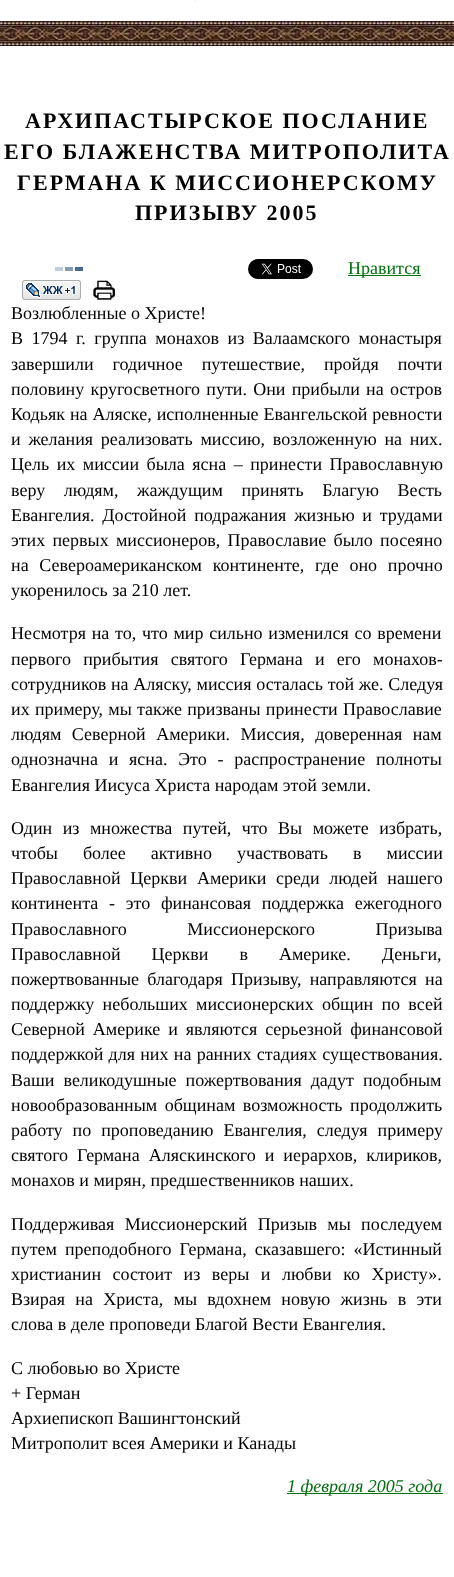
(async () => {
const canvas = document.querySelector("canvas")
canvas.width = 454
canvas.height = 1577
const c = canvas.getContext("2d")
c.miterLimit = 4
c.fontKerning = "normal"
function T(s,x,y){c.fillText(s,x,y)}
function R(x,y,w,h){c.fillRect(x,y,w,h)}
async function I(src,x,y,w,h){const img=new Image();img.src=src;await img.decode();c.drawImage(img,x,y,w,h)}
c.fillStyle="#fff"
R(0,0,454,1577)
await I("1.png",194,0,2,1)
await I("2.png",0,21,454,25)
c.letterSpacing="2px"
c.font="bold 22px Liberation Serif"
c.fillStyle="#000"
T("АРХИПАСТЫРСКОЕ ПОСЛАНИЕ",25,128)
T("ЕГО БЛАЖЕНСТВА МИТРОПОЛИТА",4,159)
T("ГЕРМАНА К МИССИОНЕРСКОМУ",17,190)
T("ПРИЗЫВУ 2005",135,220)
await I("3.png",55,267,28,4)
await I("4.png",248,259,65,20)
c.fillStyle="#006f0d"
R(348,275,73,1)
c.letterSpacing="0px"
c.font="18px Liberation Serif"
T("Нравится",348,274)
await I("5.png",22,280,59,20)
await I("6.png",93,280,22,20)
c.fillStyle="#000"
T("Возлюбленные о Христе!",11,319)
c.wordSpacing="4px"
T("В 1794 г. группа монахов из Валаамского монастыря",11,344)
c.wordSpacing="14.5px"
T("завершили годичное путешествие, пройдя почти",11,370)
c.wordSpacing="1.75px"
T("половину кругосветного пути. Они прибыли на остров",11,395)
c.wordSpacing="0.5px"
T("Кодьяк на Аляске, исполненные Евангельской ревности",11,420)
c.wordSpacing="3.25px"
T("и желания реализовать миссию, возложенную на них.",11,445)
c.wordSpacing="3px"
T("Цель их миссии была ясна – принести Православную",11,470)
c.wordSpacing="14px"
T("веру людям, жаждущим принять Благую Весть",11,496)
c.wordSpacing="3.25px"
T("Евангелия. Достойной подражания жизнью и трудами",11,521)
c.wordSpacing="2.75px"
T("этих первых миссионеров, Православие было посеяно",11,546)
c.wordSpacing="6.25px"
T("на Североамериканском континенте, где оно прочно",11,571)
c.wordSpacing="0px"
T("укоренилось за 210 лет.",11,596)
c.wordSpacing="1.25px"
T("Несмотря на то, что мир сильно изменился со времени",11,639)
c.wordSpacing="7.75px"
T("первого прибытия святого Германа и его монахов-",11,665)
c.wordSpacing="0.25px"
T("сотрудников на Аляску, миссия осталась той же. Следуя",11,690)
c.wordSpacing="0.75px"
T("их примеру, мы также призваны принести Православие",11,715)
c.wordSpacing="6px"
T("людям Северной Америки. Миссия, доверенная нам",11,740)
c.wordSpacing="6.25px"
T("однозначна и ясна. Это - распространение полноты",11,765)
c.wordSpacing="0px"
T("Евангелия Иисуса Христа народам этой земли.",11,791)
c.wordSpacing="6px"
T("Один из множества путей, что Вы можете избрать,",11,834)
c.wordSpacing="20.5px"
T("чтобы более активно участвовать в миссии",11,859)
c.wordSpacing="5.25px"
T("Православной Церкви Америки среди людей нашего",11,884)
c.wordSpacing="6.25px"
T("континента - это финансовая поддержка ежегодного",11,909)
c.wordSpacing="56px"
T("Православного Миссионерского Призыва",11,935)
c.wordSpacing="26.5px"
T("Православной Церкви в Америке. Деньги,",11,960)
c.wordSpacing="3.75px"
T("пожертвованные благодаря Призыву, направляются на",11,985)
T("поддержку небольших миссионерских общин по всей",11,1010)
c.wordSpacing="3.5px"
T("Северной Америке и являются серьезной финансовой",11,1035)
c.wordSpacing="0.75px"
T("поддержкой для них на ранних стадиях существования.",11,1060)
c.wordSpacing="4.5px"
T("Ваши великодушные пожертвования дадут подобным",11,1086)
c.wordSpacing="3px"
T("новообразованным общинам возможность продолжить",11,1111)
c.wordSpacing="5.5px"
T("работу по проповеданию Евангелия, следуя примеру",11,1136)
c.wordSpacing="4.5px"
T("святого Германа Аляскинского и иерархов, клириков,",11,1161)
c.wordSpacing="0px"
T("монахов и мирян, предшественников наших.",11,1186)
c.wordSpacing="5.75px"
T("Поддерживая Миссионерский Призыв мы последуем",11,1230)
c.wordSpacing="3.5px"
T("путем преподобного Германа, сказавшего: «Истинный",11,1255)
c.wordSpacing="7px"
T("христианин состоит из веры и любви ко Христу».",11,1280)
c.wordSpacing="5.75px"
T("Взирая на Христа, мы вдохнем новую жизнь в эти",11,1305)
c.wordSpacing="0px"
T("слова в деле проповеди Благой Вести Евангелия.",11,1330)
T("С любовью во Христе",11,1374)
T("+ Герман",11,1399)
T("Архиепископ Вашингтонский",11,1424)
T("Митрополит всея Америки и Канады",11,1449)
c.fillStyle="#006f0d"
R(287,1493,156,1)
c.font="italic 18px Liberation Serif"
T("1 февраля 2005 года",287,1492)
})()
